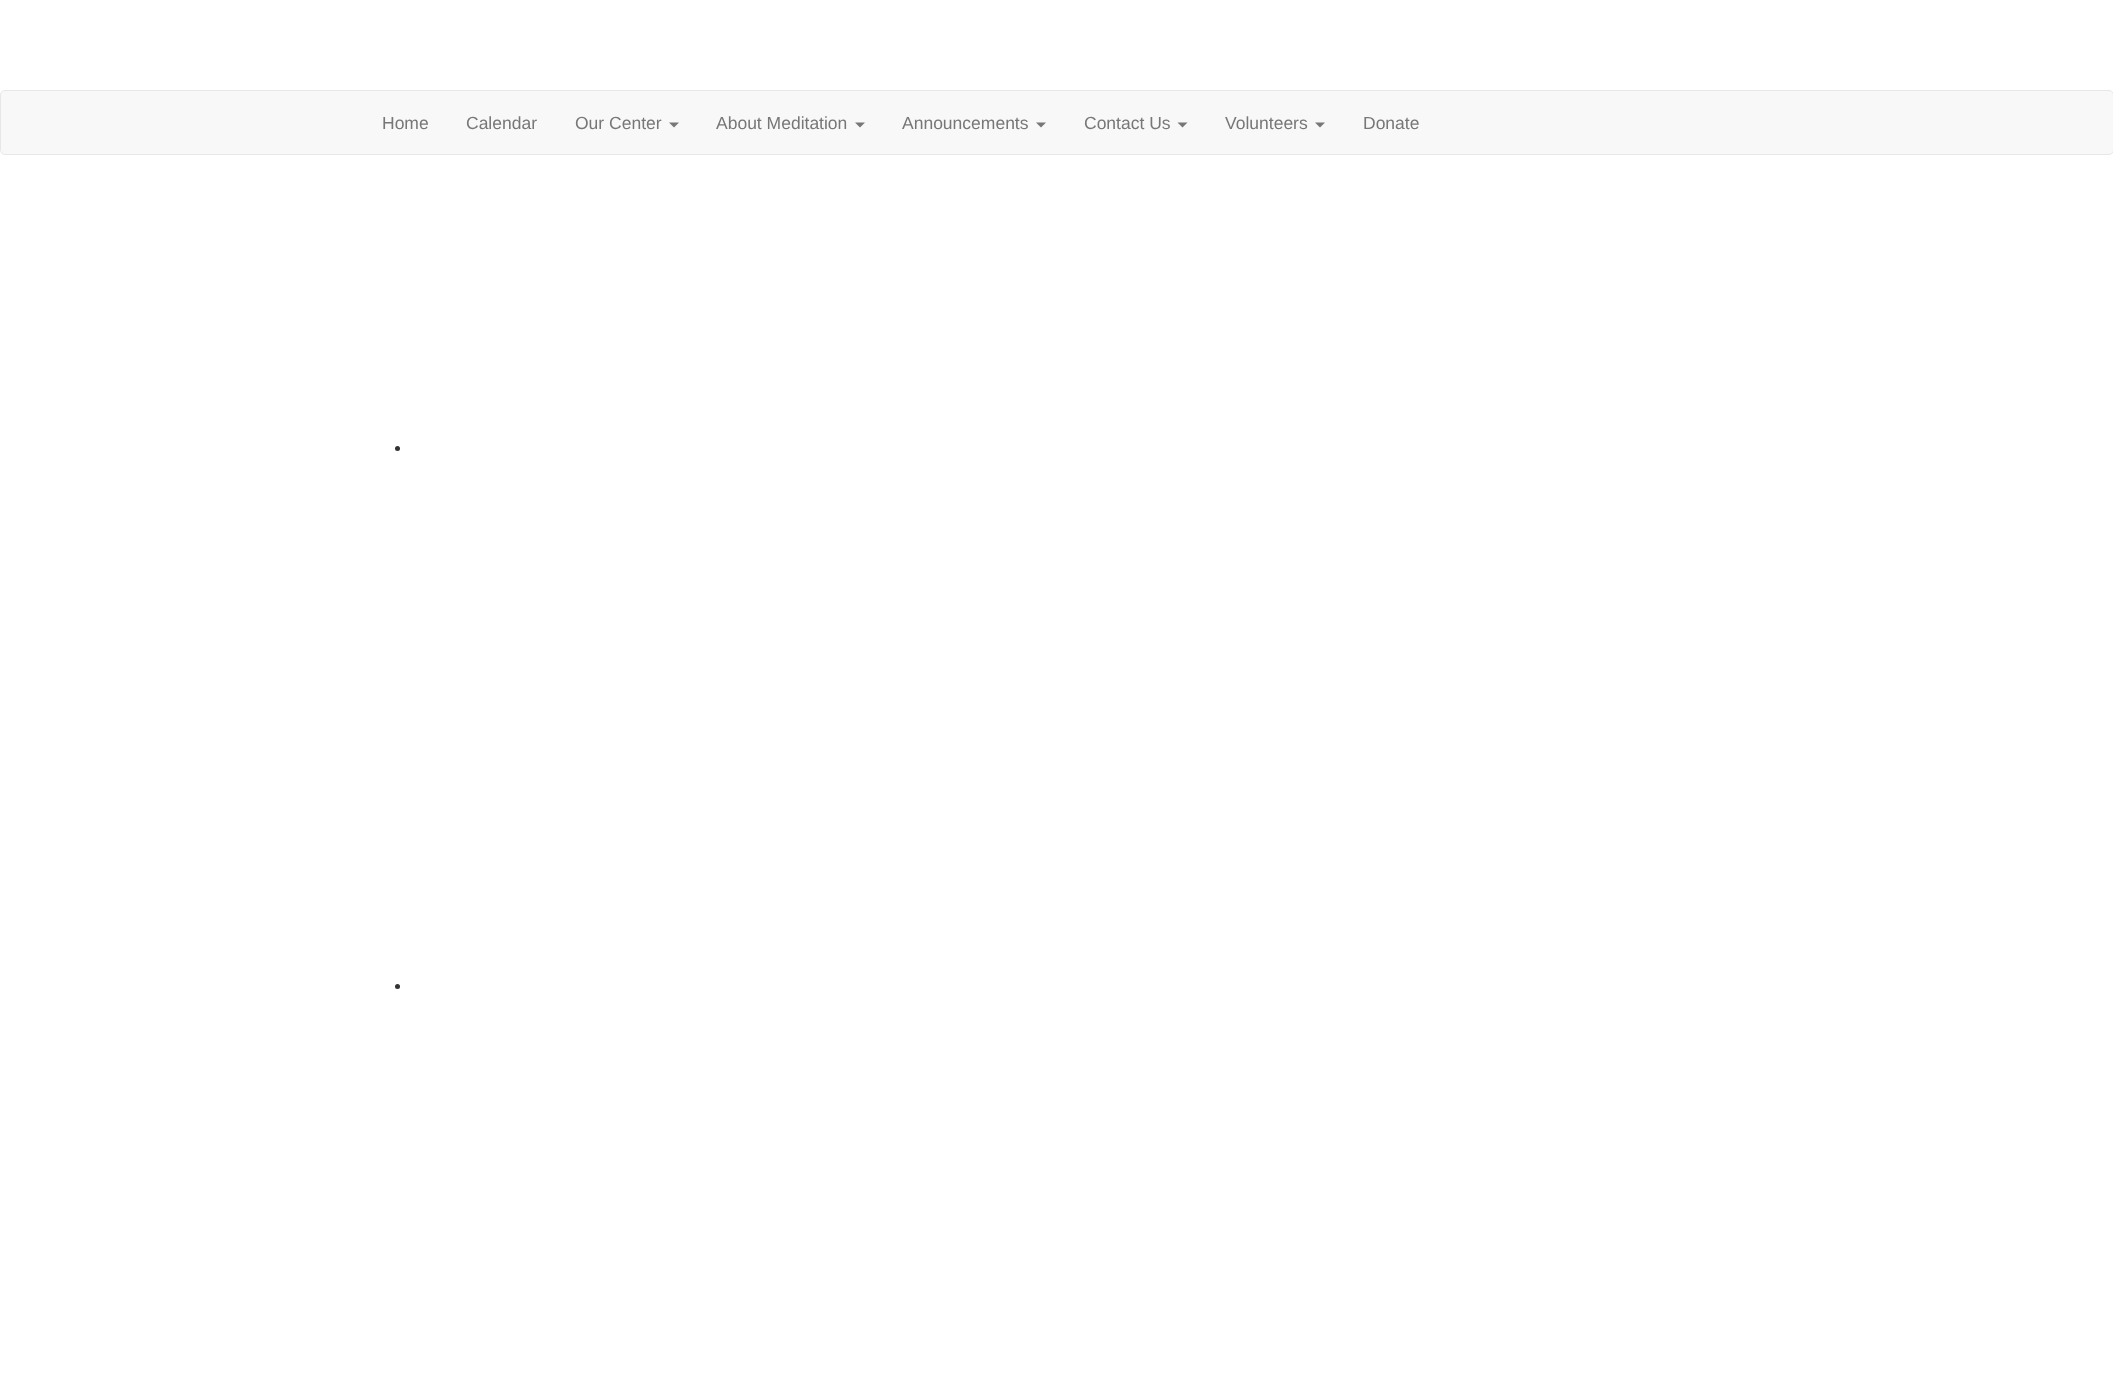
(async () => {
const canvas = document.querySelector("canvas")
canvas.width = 2113
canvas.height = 1379
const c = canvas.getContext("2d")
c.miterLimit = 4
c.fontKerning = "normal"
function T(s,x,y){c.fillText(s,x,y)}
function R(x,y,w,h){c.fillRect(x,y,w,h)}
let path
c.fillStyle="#fff"
R(0,0,2113,1379)
c.fillStyle="#f8f8f8"
c.beginPath()
c.roundRect(.5,90.5,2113,64,4.5)
c.fill()
c.strokeStyle="#e7e7e7"
c.stroke()
c.font="17.5px Liberation Sans"
c.fillStyle="#777"
T("Home",382,129)
T("Calendar",466,129)
T("Our Center",575,129)
path = new Path2D("M669 122.5h10l-5 5z")
c.fill(path)
T("About Meditation",716,129)
path = new Path2D("M855 122.5h10l-5 5z")
c.fill(path)
T("Announcements",902,129)
path = new Path2D("M1036 122.5h10l-5 5z")
c.fill(path)
T("Contact Us",1084,129)
path = new Path2D("M1177.5 122.5h10l-5 5z")
c.fill(path)
T("Volunteers",1225,129)
path = new Path2D("M1315 122.5h10l-5 5z")
c.fill(path)
T("Donate",1363,129)
c.fillStyle="#333"
c.beginPath()
c.arc(397.5,448.5,2.5,0,7)
c.fill()
c.beginPath()
c.arc(397.5,986.5,2.5,0,7)
c.fill()
})()
